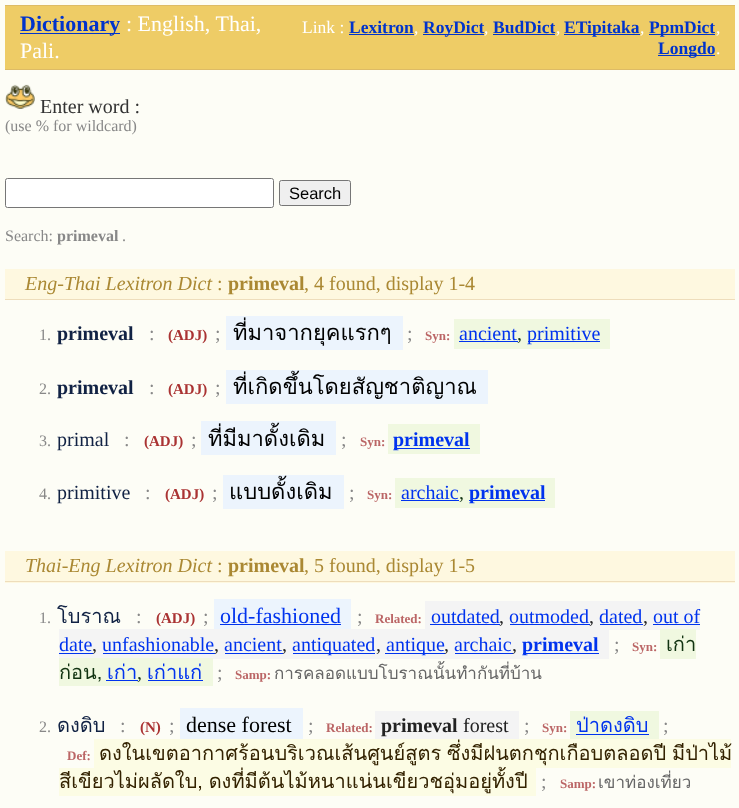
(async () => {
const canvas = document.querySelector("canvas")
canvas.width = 739
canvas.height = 808
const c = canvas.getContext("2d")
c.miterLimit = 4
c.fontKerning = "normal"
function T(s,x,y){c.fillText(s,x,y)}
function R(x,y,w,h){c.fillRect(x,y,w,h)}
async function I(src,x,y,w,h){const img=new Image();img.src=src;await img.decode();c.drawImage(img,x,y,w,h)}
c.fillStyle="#fdfdf6"
R(0,0,739,808)
c.fillStyle="#ec6"
R(5,6,730,63)
c.fillStyle="#db6"
R(5,5,730,1)
R(5,69,730,1)
c.fillStyle="#03c"
R(20,33,100,1)
c.font="bold 22px Liberation Serif"
T("Dictionary",20,31)
c.font="22px Liberation Serif"
c.fillStyle="#fff"
T(": English, Thai,",126,31)
T("Pali.",20,58)
c.font="17.5px Liberation Serif"
T("Link :",302,33)
c.font="bold 17.5px Liberation Serif"
c.fillStyle="#03c"
T("Lexitron",349,33)
c.font="17.5px Liberation Serif"
c.fillStyle="#fff"
T(",",414,33)
c.fillStyle="#03c"
R(349,34,65,1)
R(423,34,61,1)
c.font="bold 17.5px Liberation Serif"
T("RoyDict",423,33)
c.font="17.5px Liberation Serif"
c.fillStyle="#fff"
T(",",484,33)
c.font="bold 17.5px Liberation Serif"
c.fillStyle="#03c"
T("BudDict",493,33)
c.font="17.5px Liberation Serif"
c.fillStyle="#fff"
T(",",556,33)
c.fillStyle="#03c"
R(493,34,62,1)
R(564,34,76,1)
c.font="bold 17.5px Liberation Serif"
T("ETipitaka",564,33)
c.font="17.5px Liberation Serif"
c.fillStyle="#fff"
T(",",640,33)
c.fillStyle="#03c"
R(649,34,66,1)
c.font="bold 17.5px Liberation Serif"
T("PpmDict",649,33)
c.font="17.5px Liberation Serif"
c.fillStyle="#fff"
T(",",716,33)
c.fillStyle="#03c"
R(658,55,57,1)
c.font="bold 17.5px Liberation Serif"
T("Longdo",658,54)
c.font="17.5px Liberation Serif"
c.fillStyle="#fff"
T(".",716,54)
await I("1.png",5,84,30,25)
c.font="20px Liberation Serif"
c.fillStyle="#333"
T("Enter word :",40,113)
c.font="16px Liberation Serif"
c.fillStyle="#888"
T("(use % for wildcard)",5,131)
c.fillStyle="#fff"
c.beginPath()
c.roundRect(5.5,178.5,268,29,2)
c.fill()
c.strokeStyle="#767676"
c.stroke()
c.fillStyle="#efefef"
c.beginPath()
c.roundRect(279.5,180.5,71,25,2)
c.fill()
c.stroke()
c.font="16.5px Liberation Sans"
c.fillStyle="#000"
T("Search",289,199)
c.font="16px Liberation Serif"
c.fillStyle="#888"
T("Search:",5,241)
c.font="bold 16px Liberation Serif"
T("primeval",57,241)
c.font="16px Liberation Serif"
T(".",122,241)
c.fillStyle="#fef8e0"
R(5,269,730,30)
c.fillStyle="#edb"
R(5,299,730,1)
c.font="italic 20px Liberation Serif"
c.fillStyle="#a83"
T("Eng-Thai Lexitron Dict",25,290)
c.font="20px Liberation Serif"
T(":",217,290)
c.font="bold 20px Liberation Serif"
T("primeval",228,290)
c.font="20px Liberation Serif"
T(", 4 found, display 1-4",304,290)
c.font="16px Liberation Serif"
c.fillStyle="#888"
T("1.",39,340)
c.font="bold 20px Liberation Serif"
c.fillStyle="#124"
T("primeval",57,340)
c.font="20px Liberation Serif"
c.fillStyle="#888"
T(":",149,340)
c.font="bold 15px Liberation Serif"
c.fillStyle="#a33"
T("(ADJ)",168,340)
c.font="20px Liberation Serif"
c.fillStyle="#888"
T(";",215,340)
c.fillStyle="#ecf4fd"
R(226,316,177,34)
c.font="22px Loma"
c.fillStyle="#000"
T("ที่มาจากยุคแรกๆ",233,340)
c.font="20px Liberation Serif"
c.fillStyle="#888"
T(";",407,340)
c.font="bold 13px Liberation Serif"
c.fillStyle="#b66"
T("Syn:",425,340)
c.fillStyle="#f0f8e0"
R(454,319,156,30)
c.font="20px Liberation Serif"
c.fillStyle="#03e"
T("ancient",459,340)
R(459,341,59,1)
c.fillStyle="#131"
T(",",517,340)
c.fillStyle="#03e"
R(528,341,72,1)
T("primitive",527,340)
c.font="16px Liberation Serif"
c.fillStyle="#888"
T("2.",39,394)
c.font="bold 20px Liberation Serif"
c.fillStyle="#124"
T("primeval",57,394)
c.font="20px Liberation Serif"
c.fillStyle="#888"
T(":",149,394)
c.font="bold 15px Liberation Serif"
c.fillStyle="#a33"
T("(ADJ)",168,394)
c.font="20px Liberation Serif"
c.fillStyle="#888"
T(";",215,394)
c.fillStyle="#ecf4fd"
R(226,370,262,34)
c.font="22px Loma"
c.fillStyle="#000"
T("ที่เกิดขึ้นโดยสัญชาติญาณ",233,394)
c.font="16px Liberation Serif"
c.fillStyle="#888"
T("3.",39,446)
c.font="20px Liberation Serif"
c.fillStyle="#124"
T("primal",57,446)
c.fillStyle="#888"
T(":",124,446)
c.font="bold 15px Liberation Serif"
c.fillStyle="#a33"
T("(ADJ)",144,446)
c.font="20px Liberation Serif"
c.fillStyle="#888"
T(";",191,446)
c.fillStyle="#ecf4fd"
R(201,421,135,34)
c.font="22px Loma"
c.fillStyle="#000"
T("ที่มีมาดั้งเดิม",208,446)
c.font="20px Liberation Serif"
c.fillStyle="#888"
T(";",341,446)
c.font="bold 13px Liberation Serif"
c.fillStyle="#b66"
T("Syn:",360,446)
c.fillStyle="#f0f8e0"
R(388,424,92,30)
c.fillStyle="#03e"
R(394,448,76,1)
c.font="bold 20px Liberation Serif"
T("primeval",393,446)
c.font="16px Liberation Serif"
c.fillStyle="#888"
T("4.",39,499)
c.font="20px Liberation Serif"
c.fillStyle="#124"
T("primitive",57,499)
c.fillStyle="#888"
T(":",145,499)
c.font="bold 15px Liberation Serif"
c.fillStyle="#a33"
T("(ADJ)",165,499)
c.font="20px Liberation Serif"
c.fillStyle="#888"
T(";",212,499)
c.fillStyle="#ecf4fd"
R(223,475,121,34)
c.font="22px Loma"
c.fillStyle="#000"
T("แบบดั้งเดิม",229,499)
c.font="20px Liberation Serif"
c.fillStyle="#888"
T(";",349,499)
c.font="bold 13px Liberation Serif"
c.fillStyle="#b66"
T("Syn:",367,499)
c.fillStyle="#f0f8e0"
R(395,478,160,30)
c.font="20px Liberation Serif"
c.fillStyle="#03e"
T("archaic",401,499)
c.fillStyle="#131"
T(",",459,499)
c.fillStyle="#03e"
R(401,500,58,1)
R(469,500,76,1)
c.font="bold 20px Liberation Serif"
T("primeval",469,499)
c.fillStyle="#fef8e0"
R(5,551,730,32)
c.fillStyle="#edb"
R(5,581,730,1)
c.font="italic 20px Liberation Serif"
c.fillStyle="#a83"
T("Thai-Eng Lexitron Dict",25,572)
c.font="20px Liberation Serif"
T(":",217,572)
c.font="bold 20px Liberation Serif"
T("primeval",228,572)
c.font="20px Liberation Serif"
T(", 5 found, display 1-5",304,572)
c.font="16px Liberation Serif"
c.fillStyle="#888"
T("1.",39,623)
c.font="20px Loma"
c.fillStyle="#124"
T("โบราณ",57,623)
c.font="20px Liberation Serif"
c.fillStyle="#888"
T(":",136,623)
c.font="bold 15px Liberation Serif"
c.fillStyle="#a33"
T("(ADJ)",156,623)
c.font="20px Liberation Serif"
c.fillStyle="#888"
T(";",203,623)
c.fillStyle="#ecf4fd"
R(214,599,137,30)
c.font="22px Liberation Serif"
c.fillStyle="#03e"
T("old-fashioned",220,623)
R(220,624,121,1)
c.font="20px Liberation Serif"
c.fillStyle="#888"
T(";",357,623)
c.font="bold 13px Liberation Serif"
c.fillStyle="#b66"
T("Related:",375,623)
c.fillStyle="#f4f4f4"
R(425,601,175,28)
c.font="20px Liberation Serif"
c.fillStyle="#03e"
T("outdated",431,623)
c.fillStyle="#222"
T(",",499,623)
c.fillStyle="#03e"
R(430,624,70,1)
T("outmoded",509,623)
c.fillStyle="#222"
T(",",589,623)
c.fillStyle="#03e"
R(510,624,80,1)
c.fillStyle="#f4f4f4"
R(600,601,100,29)
c.fillStyle="#03e"
T("dated",599,623)
c.fillStyle="#222"
T(",",643,623)
c.fillStyle="#03e"
R(600,624,43,1)
R(653,624,47,1)
T("out of",653,623)
c.fillStyle="#f4f4f4"
R(59,629,44,29)
c.fillStyle="#03e"
T("date",59,651)
c.fillStyle="#222"
T(",",92,651)
c.fillStyle="#03e"
R(59,653,34,1)
c.fillStyle="#f4f4f4"
R(103,629,506,30)
c.fillStyle="#03e"
T("unfashionable",102,651)
c.fillStyle="#222"
T(",",214,651)
c.fillStyle="#03e"
R(103,653,112,1)
T("ancient",224,651)
c.fillStyle="#222"
T(",",282,651)
c.fillStyle="#03e"
R(225,653,58,1)
R(293,653,82,1)
T("antiquated",292,651)
c.fillStyle="#222"
T(",",376,651)
c.fillStyle="#03e"
R(385,653,60,1)
T("antique",386,651)
c.fillStyle="#222"
T(",",444,651)
c.fillStyle="#03e"
T("archaic",454,651)
R(455,653,58,1)
c.fillStyle="#222"
T(",",512,651)
c.fillStyle="#03e"
R(523,653,76,1)
c.font="bold 20px Liberation Serif"
T("primeval",522,651)
c.font="20px Liberation Serif"
c.fillStyle="#888"
T(";",614,651)
c.font="bold 13px Liberation Serif"
c.fillStyle="#b66"
T("Syn:",632,651)
c.fillStyle="#f0f8e0"
R(660,629,36,30)
c.font="20px Loma"
c.fillStyle="#131"
T("เก่า",666,651)
c.fillStyle="#f0f8e0"
R(59,658,154,28)
c.fillStyle="#131"
T("ก่อน,",59,679)
c.fillStyle="#03e"
T("เก่า",107,679)
R(106,680,32,1)
c.font="20px Liberation Serif"
c.fillStyle="#131"
T(",",137,679)
c.fillStyle="#03e"
R(148,680,55,1)
c.font="20px Loma"
T("เก่าแก่",147,679)
c.font="20px Liberation Serif"
c.fillStyle="#888"
T(";",217,679)
c.font="bold 13px Liberation Serif"
c.fillStyle="#b66"
T("Samp:",235,679)
c.font="17px Loma"
c.fillStyle="#666"
T("การคลอดแบบโบราณนั้นทำกันที่บ้าน",274,679)
c.font="16px Liberation Serif"
c.fillStyle="#888"
T("2.",39,732)
c.font="20px Loma"
c.fillStyle="#124"
T("ดงดิบ",57,732)
c.font="20px Liberation Serif"
c.fillStyle="#888"
T(":",120,732)
c.font="bold 15px Liberation Serif"
c.fillStyle="#a33"
T("(N)",140,732)
c.font="20px Liberation Serif"
c.fillStyle="#888"
T(";",169,732)
c.fillStyle="#ecf4fd"
R(180,708,123,31)
c.font="22px Liberation Serif"
c.fillStyle="#000"
T("dense forest",186,732)
c.font="20px Liberation Serif"
c.fillStyle="#888"
T(";",308,732)
c.font="bold 13px Liberation Serif"
c.fillStyle="#b66"
T("Related:",326,732)
c.fillStyle="#f4f4f4"
R(375,711,144,28)
c.font="bold 20px Liberation Serif"
c.fillStyle="#222"
T("primeval",381,732)
c.font="20px Liberation Serif"
T("forest",463,732)
c.fillStyle="#888"
T(";",524,732)
c.font="bold 13px Liberation Serif"
c.fillStyle="#b66"
T("Syn:",542,732)
c.fillStyle="#f0f8e0"
R(570,711,89,28)
c.font="20px Loma"
c.fillStyle="#03e"
T("ป่าดงดิบ",576,732)
R(576,734,73,1)
c.font="20px Liberation Serif"
c.fillStyle="#888"
T(";",663,732)
c.font="bold 13px Liberation Serif"
c.fillStyle="#b66"
T("Def:",67,760)
c.fillStyle="#fcfce4"
R(94,739,637,29)
c.wordSpacing="-1px"
c.font="20px Loma"
c.fillStyle="#320"
T("ดงในเขตอากาศร้อนบริเวณเส้นศูนย์สูตร ซึ่งมีฝนตกชุกเกือบตลอดปี มีป่าไม้",99,760)
c.fillStyle="#fcfce4"
R(59,768,477,28)
c.fillStyle="#320"
T("สีเขียวไม่ผลัดใบ, ดงที่มีต้นไม้หนาแน่นเขียวชอุ่มอยู่ทั้งปี",59,788)
c.wordSpacing="0px"
c.font="20px Liberation Serif"
c.fillStyle="#888"
T(";",541,788)
c.font="bold 13px Liberation Serif"
c.fillStyle="#b66"
T("Samp:",560,788)
c.font="17px Loma"
c.fillStyle="#666"
T("เขาท่องเที่ยว",598,788)
})()
